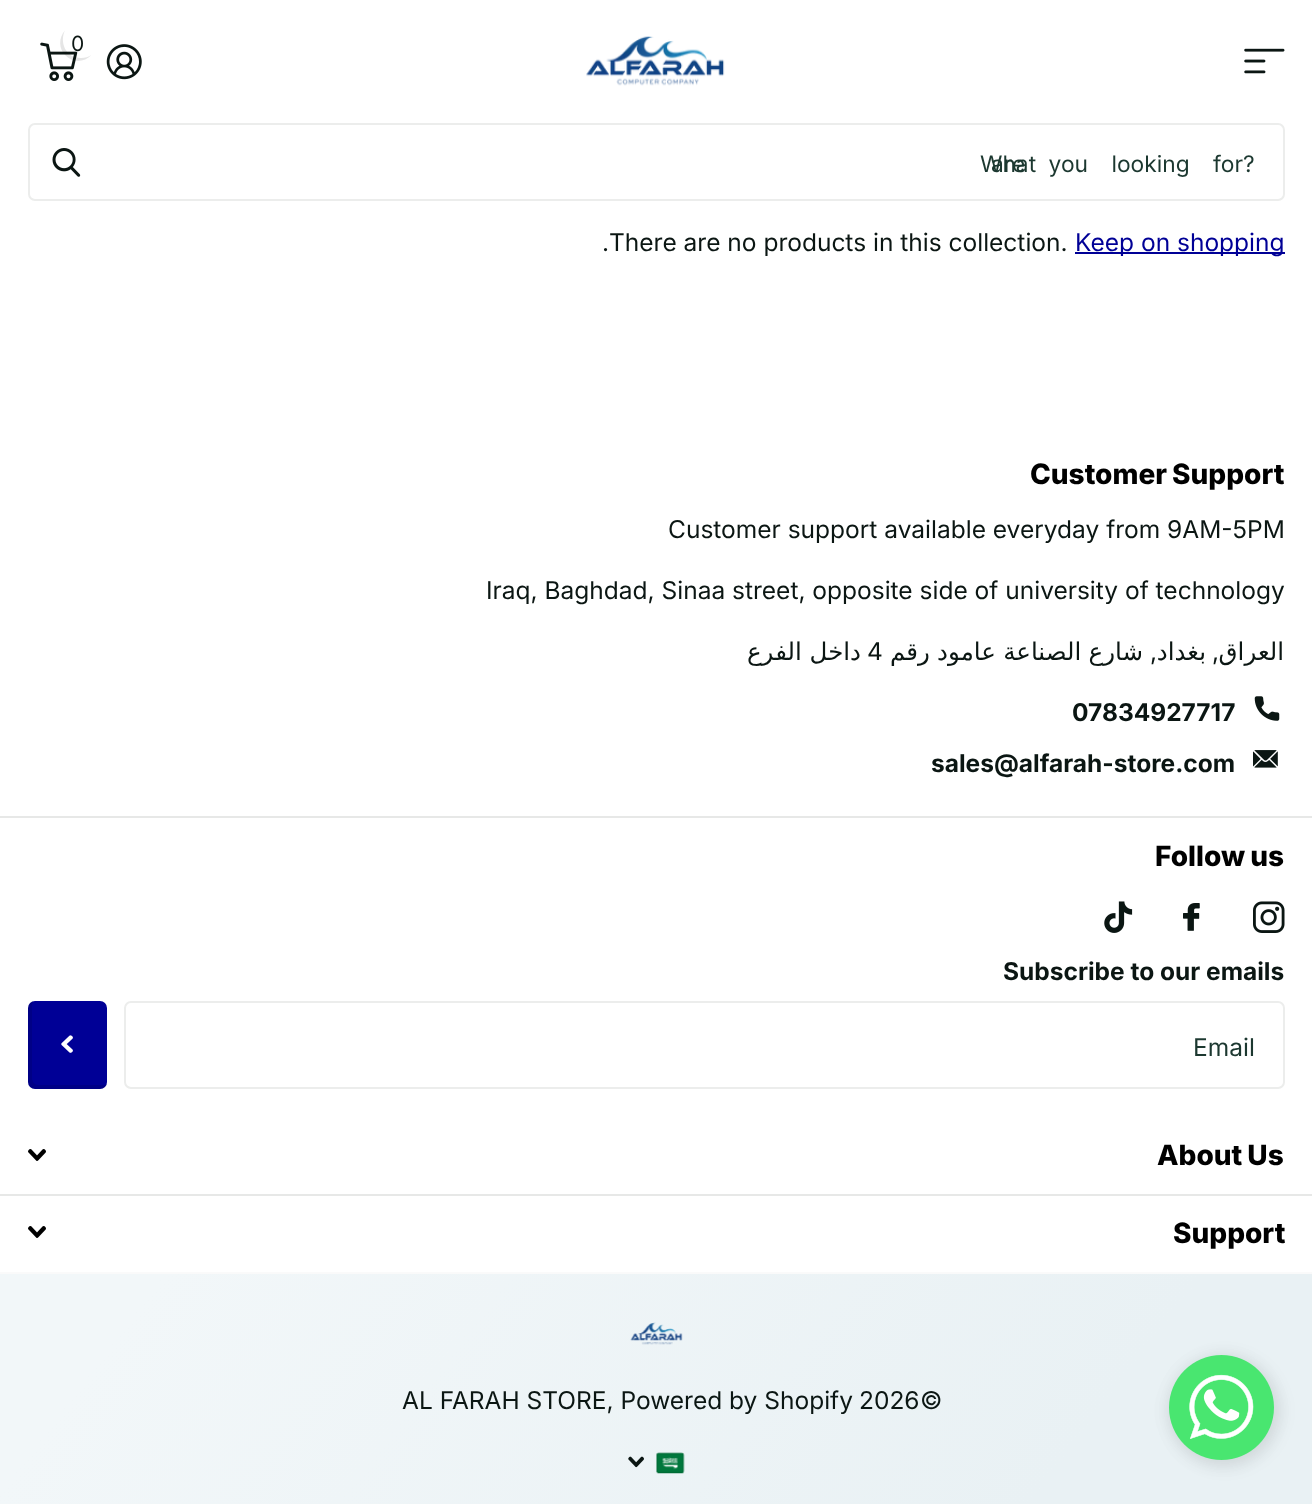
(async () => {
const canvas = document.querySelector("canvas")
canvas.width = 1312
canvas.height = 1504
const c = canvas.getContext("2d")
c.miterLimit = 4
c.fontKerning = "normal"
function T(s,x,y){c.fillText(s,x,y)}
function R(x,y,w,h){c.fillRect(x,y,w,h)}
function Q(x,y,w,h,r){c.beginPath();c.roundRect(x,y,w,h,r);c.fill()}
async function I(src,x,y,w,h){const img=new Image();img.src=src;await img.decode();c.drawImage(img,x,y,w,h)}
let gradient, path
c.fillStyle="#fff"
R(0,0,1312,1504)
await I("1.png",40,42,38,39)
c.fillStyle="#0000001a"
path = new Path2D("M91.5 55c-3 2-6.5 3-10.5 3c-16 0-21.5-16.5-16-27.5c-6.5 7-6.5 18.5 .5 25c7 7.5 19 7 26-.5z")
c.fill(path)
c.font="21px Inter"
c.fillStyle="#0b1613"
T("0",71,51)
await I("2.png",106,44,36,36)
await I("3.png",586,36,139,50)
await I("4.png",1244,48,41,26)
c.beginPath()
c.roundRect(29,124,1255,76,6)
c.strokeStyle="#ecedec"
c.lineWidth=2
c.stroke()
await I("5.png",52,148,29,29)
c.font="22.75px Inter"
c.fillStyle="#1c3830"
T("What",980,172)
c.wordSpacing="17px"
T("are you looking for?",991,172)
c.wordSpacing="0px"
c.font="24.5px Inter"
c.fillStyle="#0b1613"
T(".",602,251)
T("There are no products in this collection.",609,251)
c.fillStyle="#000096"
R(1075,252,210,2)
T("Keep on shopping",1075,251)
c.wordSpacing="-1px"
c.font="800 28px Inter"
c.fillStyle="#000"
T("Customer Support",1030,484)
c.wordSpacing="0px"
c.font="24.5px Inter"
c.fillStyle="#0b1613"
T("Customer support available everyday from 9AM-5PM",668,538)
T("Iraq, Baghdad, Sinaa street, opposite side of university of technology",486,599)
c.direction="rtl"
c.font="24.5px DejaVu Sans"
T("داخل الفرع",861,660)
c.direction="ltr"
c.font="24.5px Inter"
T("4",867,660)
c.wordSpacing="-0.5px"
c.direction="rtl"
c.font="24.5px DejaVu Sans"
T("شارع الصناعة عامود رقم",1143,660)
c.wordSpacing="0px"
T("بغداد",1206,660)
T("العراق",1284,660)
c.font="24.5px Inter"
T(",",1157,660)
T(",",1219,660)
c.direction="ltr"
c.font="bold 24.5px Inter"
T("07834927717",1072,721)
await I("6.png",1254,696,26,25)
T("sales@alfarah-store.com",931,772)
await I("7.png",1253,750,25,18)
c.fillStyle="#e7e8e7"
R(0,816,1312,2)
c.wordSpacing="-1px"
c.font="800 28px Inter"
c.fillStyle="#000"
T("Follow us",1155,866)
await I("8.png",1104,901,29,32)
await I("9.png",1183,903,17,28)
await I("10.png",1253,901,32,32)
c.wordSpacing="0px"
c.font="bold 24.5px Inter"
c.fillStyle="#0b1613"
T("Subscribe to our emails",1003,980)
c.fillStyle="#000096"
Q(28,1001,79,88,7)
c.fillStyle="#0000001a"
path = new Path2D("M33 1001c-3 1-5 4-5 7v74c0 4 3 7 7 7h65c3 0 6-2 7-5c-1 1-3 1-4 1h-65c-3 0-6-3-6-7v-74z")
c.fill(path)
await I("11.png",61,1035,12,18)
c.beginPath()
c.roundRect(125,1002,1159,86,6)
c.stroke()
c.font="24.5px Inter"
c.fillStyle="#1c3830"
T("Email",1193,1056)
await I("12.png",28,1149,18,12)
c.wordSpacing="-1px"
c.font="800 28px Inter"
c.fillStyle="#000"
T("About Us",1157,1165)
c.fillStyle="#e7e8e7"
R(0,1194,1312,2)
await I("12.png",28,1226,18,12)
c.wordSpacing="0px"
c.fillStyle="#000"
T("Support",1173,1243)
gradient = c.createLinearGradient(182,1032,1130,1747)
gradient.addColorStop(.11,"#f2f7f9")
gradient.addColorStop(.81,"#e9f1f4")
c.fillStyle = gradient
R(0,1274,1312,230)
c.fillStyle="#fafafa"
R(0,1272,1312,2)
await I("13.png",630,1322,53,23)
c.font="24.5px Inter"
c.fillStyle="#0b1613"
T("AL FARAH STORE, Powered by Shopify",402,1409)
T("2026",859,1409)
T("©",920,1409)
await I("14.png",628,1456,16,12)
await I("15.png",656,1452,29,22)
c.fillStyle="#0000000d"
c.filter="blur(9px)"
c.beginPath()
c.roundRect(1169,1358,105,105,52.5)
c.fill()
c.filter="none"
c.fillStyle="#00000012"
c.filter="blur(8px)"
c.beginPath()
c.roundRect(1169,1355,112,112,56)
c.fill()
c.filter="none"
await I("16.png",1169,1355,105,105)
})()
